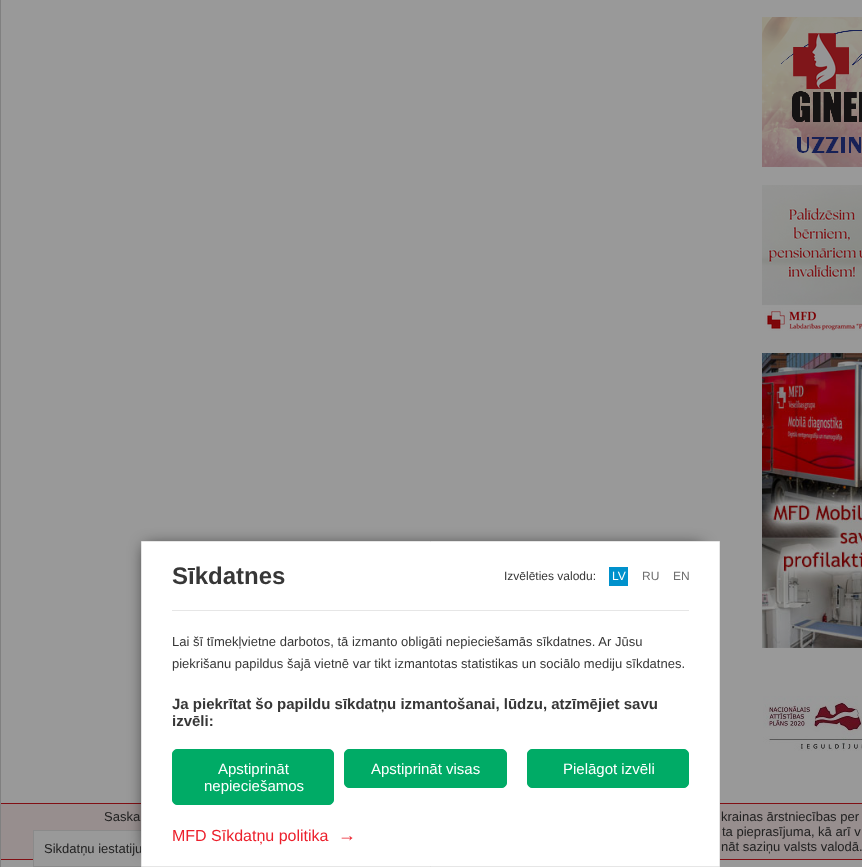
(async () => {
const canvas = document.querySelector("canvas")
canvas.width = 862
canvas.height = 867
const c = canvas.getContext("2d")
c.miterLimit = 4
c.fontKerning = "normal"
function T(s,x,y){c.fillText(s,x,y)}
function R(x,y,w,h){c.fillRect(x,y,w,h)}
async function I(src,x,y,w,h){const img=new Image();img.src=src;await img.decode();c.drawImage(img,x,y,w,h)}
c.fillStyle="#999"
R(0,0,862,867)
c.fillStyle="#978e8e"
R(1,804,861,55)
c.fillStyle="#810f14"
R(1,859,861,1)
c.fillStyle="#999"
R(34,831,107,29)
c.strokeStyle="#8a8a8a"
c.strokeRect(33.5,830.5,133,36)
c.fillStyle="#810f14"
R(1,803,861,1)
c.fillStyle="#000000bf"
c.filter="blur(8px)"
c.beginPath()
c.rect(145,546,557,304)
c.fill()
c.filter="none"
c.font="13px Liberation Sans"
c.fillStyle="#212121"
T("Sikdatņu iestatiju",44,853)
c.fillStyle="#fff"
c.beginPath()
c.rect(141.5,541.5,578,325)
c.fill()
c.strokeStyle="#e6e6e6"
c.stroke()
c.font="bold 24px Liberation Sans"
c.fillStyle="#373737"
T("Sīkdatnes",172,584)
c.font="12px Liberation Sans"
T("Izvēlēties valodu:",504,580)
c.fillStyle="#0091cc"
R(609,567,19,19)
c.fillStyle="#fff"
T("LV",612,580)
c.fillStyle="#6e6e6e"
T("RU",642,580)
T("EN",673,580)
c.fillStyle="#e6e6e6"
R(172,610,517,1)
c.font="13px Liberation Sans"
c.fillStyle="#373737"
T("Lai šī tīmekļvietne darbotos, tā izmanto obligāti nepieciešamās sīkdatnes. Ar Jūsu",172,646)
T("piekrišanu papildus šajā vietnē var tikt izmantotas statistikas un sociālo mediju sīkdatnes.",172,668)
c.font="bold 15px Liberation Sans"
T("Ja piekrītat šo papildu sīkdatņu izmantošanai, lūdzu, atzīmējiet savu",172,709)
T("izvēli:",172,726)
c.fillStyle="#00ab66"
c.beginPath()
c.roundRect(172.5,749.5,161,55,4.5)
c.fill()
c.strokeStyle="#00ab66"
c.stroke()
c.font="15px Liberation Sans"
c.fillStyle="#fff"
T("Apstiprināt",218,774)
T("nepieciešamos",204,791)
c.fillStyle="#00ab66"
c.beginPath()
c.roundRect(344.5,749.5,162,38,4.5)
c.fill()
c.stroke()
c.fillStyle="#fff"
T("Apstiprināt visas",371,774)
c.fillStyle="#00ab66"
c.beginPath()
c.roundRect(527.5,749.5,161,38,4.5)
c.fill()
c.stroke()
c.fillStyle="#fff"
T("Pielāgot izvēli",563,774)
c.font="16px Liberation Sans"
c.fillStyle="#ec202c"
T("MFD Sīkdatņu politika",172,841)
c.font="bold 18px Liberation Sans"
T("→",338,841)
c.fillStyle="#808080"
R(0,0,1,867)
await I("1.png",762,17,100,150)
await I("2.png",762,185,100,146)
await I("3.png",762,353,100,295)
await I("4.png",763,696,99,55)
c.font="13px Liberation Sans"
c.fillStyle="#212121"
T("Saska",104,821)
T("krainas ārstniecības per",721,821)
T("ta pieprasījuma, kā arī v",722,836)
T("nāt saziņu valsts valodā.",721,851)
})()
